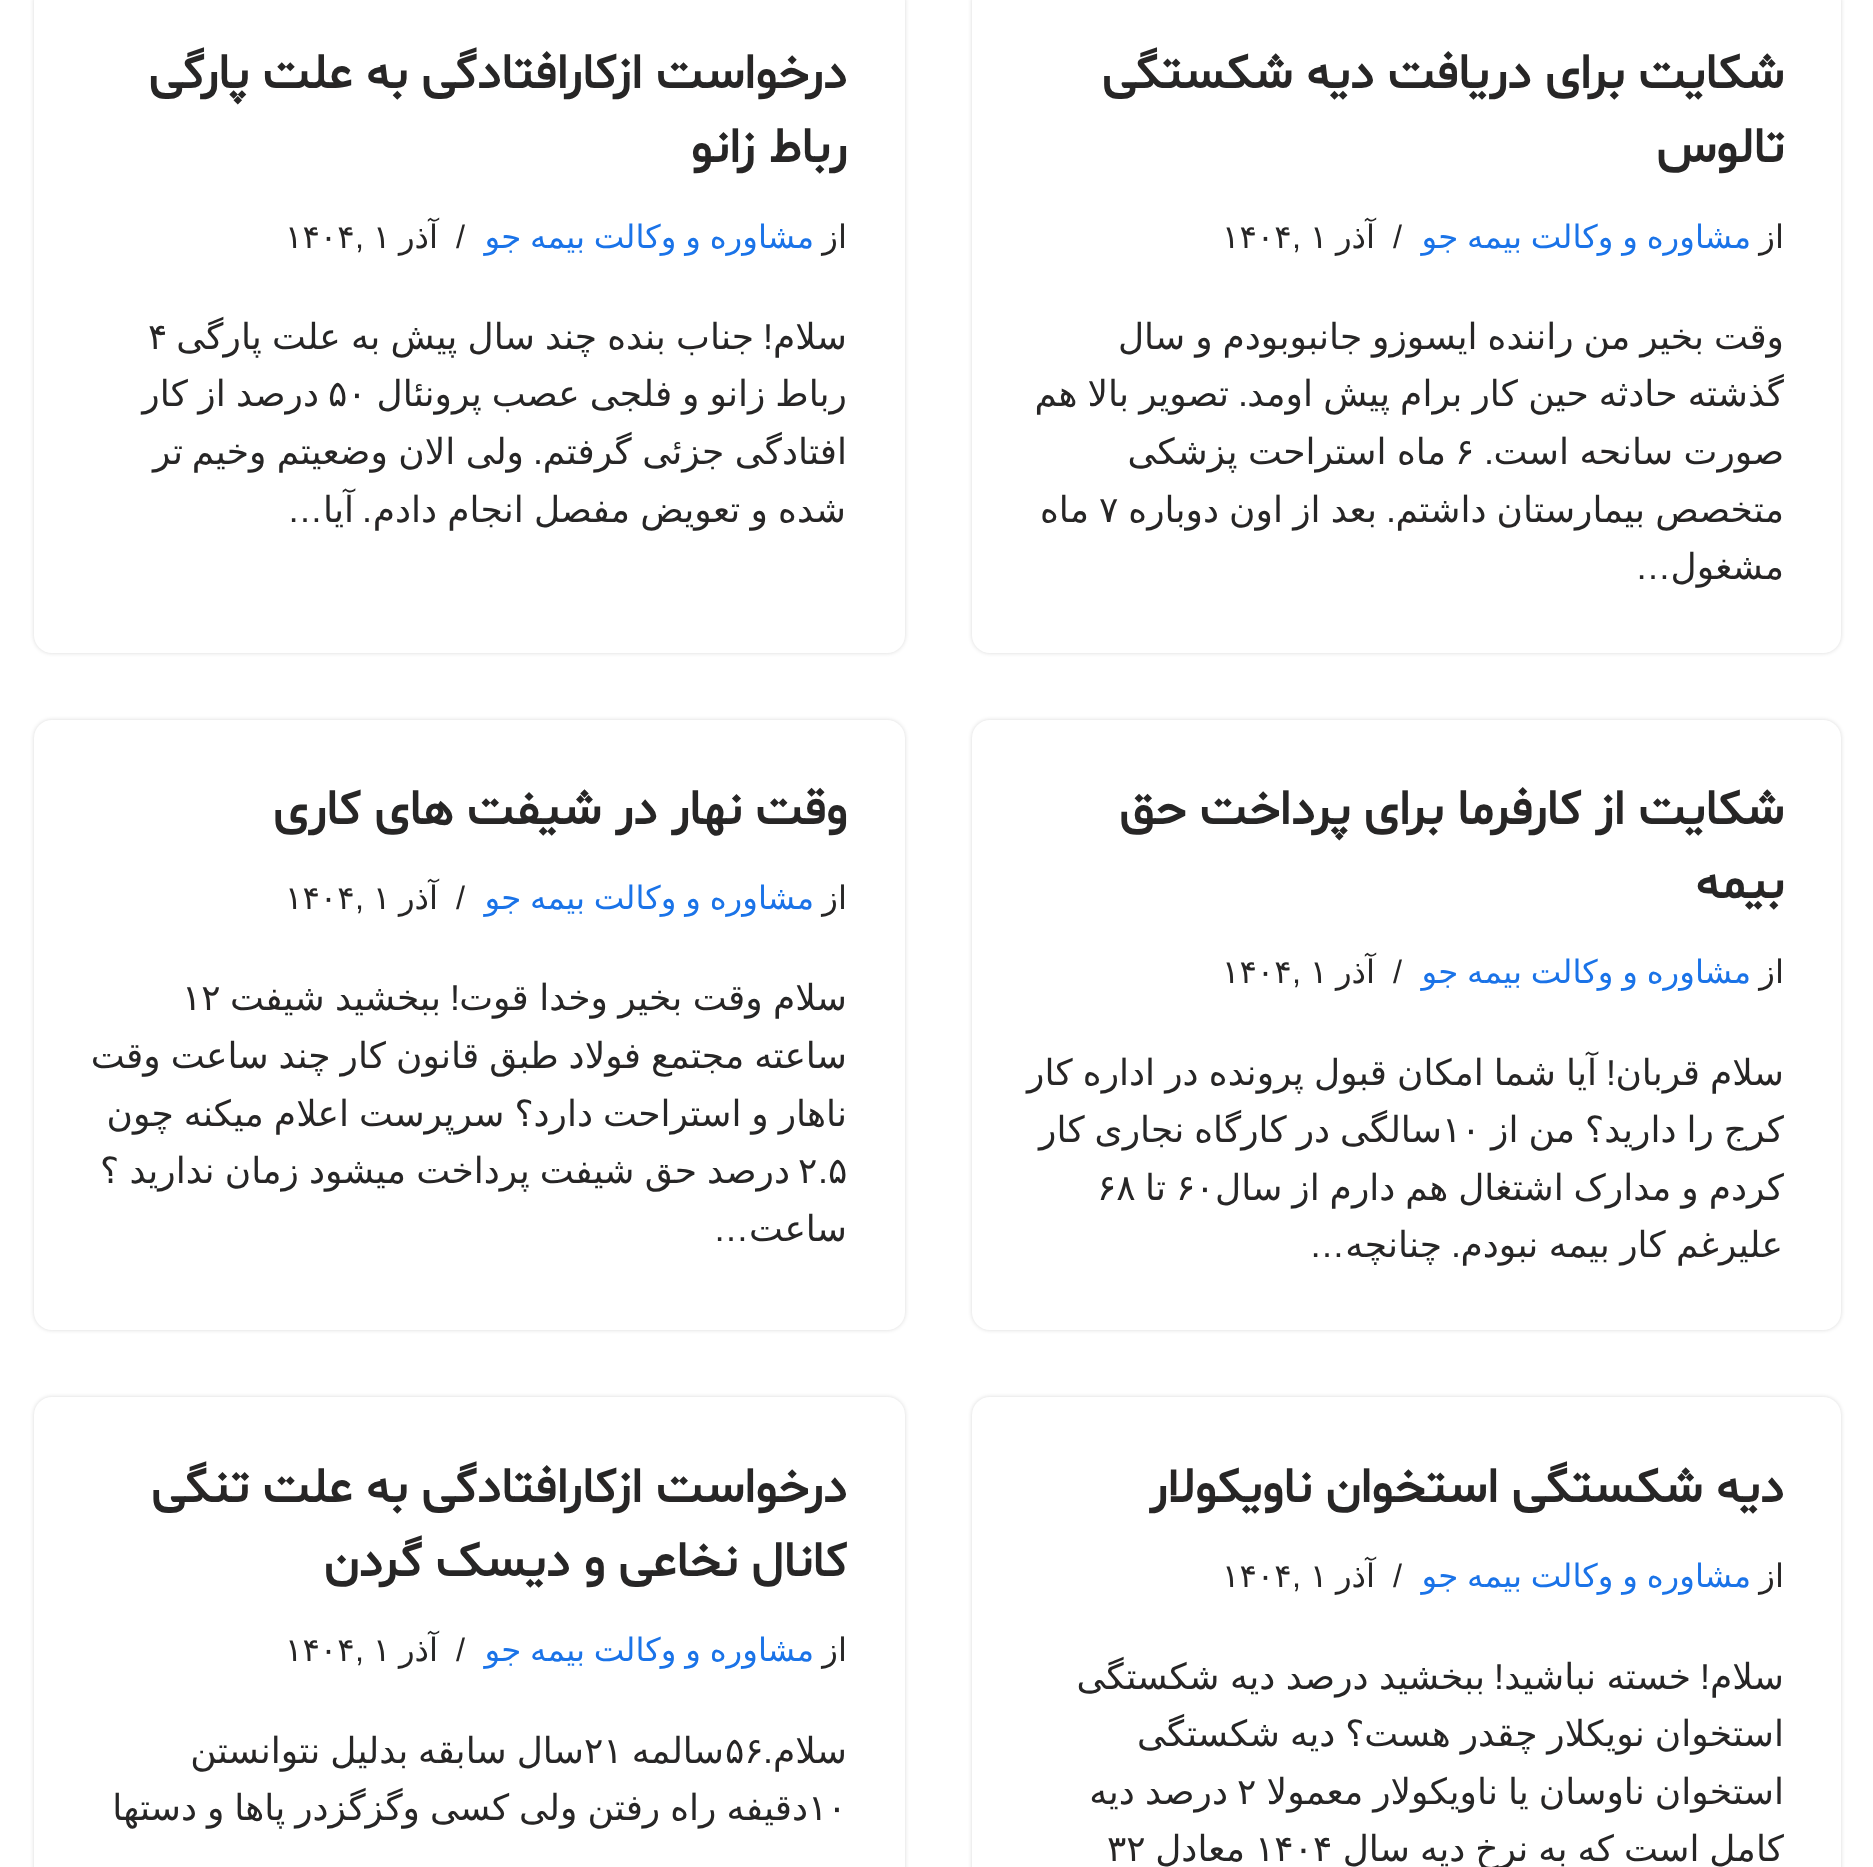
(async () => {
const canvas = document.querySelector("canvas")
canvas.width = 1873
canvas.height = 1867
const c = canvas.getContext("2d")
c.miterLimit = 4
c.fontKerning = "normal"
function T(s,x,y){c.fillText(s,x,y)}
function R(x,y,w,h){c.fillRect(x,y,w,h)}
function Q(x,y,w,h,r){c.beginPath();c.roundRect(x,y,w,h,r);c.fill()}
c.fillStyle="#fff"
R(0,0,1873,1867)
c.fillStyle="#00000026"
c.filter="blur(2px)"
c.beginPath()
c.roundRect(972,-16,869,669,18)
c.fill()
c.filter="none"
c.fillStyle="#fff"
Q(972,-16,869,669,18)
c.direction="rtl"
c.font="bold 49.5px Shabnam"
c.fillStyle="#272626"
T("شکایت برای دریافت دیه شکستگی",1784,88)
T("تالوس",1784,162)
c.font="32.4px DejaVu Sans"
T("از",1784,248)
c.wordSpacing="-1.5px"
c.fillStyle="#1a73e8"
T("مشاوره و وکالت بیمه جو",1751,248)
c.wordSpacing="0px"
c.direction="ltr"
c.font="32.4px Liberation Sans"
c.fillStyle="#272626"
T("/",1393,248)
c.direction="rtl"
c.font="32.4px DejaVu Sans"
T("آذر",1375,248)
c.direction="ltr"
T("۱",1310,248)
c.font="32.4px Liberation Sans"
T(",",1292,248)
c.font="32.4px DejaVu Sans"
T("۱۴۰۴",1222,248)
c.wordSpacing="-1.5px"
c.direction="rtl"
c.font="36px DejaVu Sans"
T("وقت بخیر من راننده ایسوزو جانبوبودم و سال",1784,349)
c.wordSpacing="-1.25px"
T("گذشته حادثه حین کار برام پیش اومد",1784,406)
c.wordSpacing="0px"
c.font="36px Liberation Sans"
T(".",1248,406)
c.wordSpacing="-1.25px"
c.font="36px DejaVu Sans"
T("تصویر بالا هم",1229,406)
c.wordSpacing="-1px"
T("صورت سانحه است",1784,464)
c.wordSpacing="0px"
c.font="36px Liberation Sans"
T(".",1494,464)
c.direction="ltr"
c.font="36px DejaVu Sans"
T("۶",1455,464)
c.wordSpacing="-1px"
c.direction="rtl"
T("ماه استراحت پزشکی",1446,464)
c.wordSpacing="-1.25px"
T("متخصص بیمارستان داشتم",1784,522)
c.wordSpacing="0px"
c.font="36px Liberation Sans"
T(".",1396,522)
c.wordSpacing="-1.25px"
c.font="36px DejaVu Sans"
T("بعد از اون دوباره",1377,522)
c.wordSpacing="0px"
c.direction="ltr"
T("۷",1099,522)
c.direction="rtl"
T("ماه",1089,522)
T("مشغول",1784,579)
c.font="36px Liberation Sans"
T("…",1671,579)
c.fillStyle="#00000026"
c.filter="blur(2px)"
c.beginPath()
c.roundRect(34,-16,871,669,18)
c.fill()
c.filter="none"
c.fillStyle="#fff"
Q(34,-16,871,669,18)
c.font="bold 49.5px Shabnam"
c.fillStyle="#272626"
T("درخواست ازکارافتادگی به علت پارگی",847,88)
T("رباط زانو",847,162)
c.font="32.4px DejaVu Sans"
T("از",847,248)
c.wordSpacing="-1.5px"
c.fillStyle="#1a73e8"
T("مشاوره و وکالت بیمه جو",814,248)
c.wordSpacing="0px"
c.direction="ltr"
c.font="32.4px Liberation Sans"
c.fillStyle="#272626"
T("/",456,248)
c.direction="rtl"
c.font="32.4px DejaVu Sans"
T("آذر",438,248)
c.direction="ltr"
T("۱",373,248)
c.font="32.4px Liberation Sans"
T(",",355,248)
c.font="32.4px DejaVu Sans"
T("۱۴۰۴",285,248)
c.direction="rtl"
c.font="36px DejaVu Sans"
T("سلام",847,349)
c.font="36px Liberation Sans"
T("!",773,349)
c.wordSpacing="-1.25px"
c.font="36px DejaVu Sans"
T("جناب بنده چند سال پیش به علت پارگی",754,349)
c.wordSpacing="0px"
c.direction="ltr"
T("۴",148,349)
c.wordSpacing="-1.5px"
c.direction="rtl"
T("رباط زانو و فلجی عصب پرونئال",847,406)
c.wordSpacing="0px"
c.direction="ltr"
T("۵۰",328,406)
c.wordSpacing="-1px"
c.direction="rtl"
T("درصد از کار",319,406)
T("افتادگی جزئی گرفتم",847,464)
c.wordSpacing="0px"
c.font="36px Liberation Sans"
T(".",543,464)
c.wordSpacing="-1px"
c.font="36px DejaVu Sans"
T("ولی الان وضعیتم وخیم",524,464)
c.wordSpacing="0px"
T("تر",183,464)
c.wordSpacing="-1.25px"
T("شده و تعویض مفصل انجام دادم",846,522)
c.wordSpacing="0px"
c.font="36px Liberation Sans"
T(".",372,522)
c.font="36px DejaVu Sans"
T("آیا",354,522)
c.font="36px Liberation Sans"
T("…",323,522)
c.fillStyle="#00000026"
c.filter="blur(2px)"
c.beginPath()
c.roundRect(972,720,869,610,18)
c.fill()
c.filter="none"
c.fillStyle="#fff"
Q(972,720,869,610,18)
c.font="bold 49.5px Shabnam"
c.fillStyle="#272626"
T("شکایت از کارفرما برای پرداخت حق",1784,824)
T("بیمه",1784,898)
c.font="32.4px DejaVu Sans"
T("از",1784,983)
c.wordSpacing="-1.5px"
c.fillStyle="#1a73e8"
T("مشاوره و وکالت بیمه جو",1751,983)
c.wordSpacing="0px"
c.direction="ltr"
c.font="32.4px Liberation Sans"
c.fillStyle="#272626"
T("/",1393,983)
c.direction="rtl"
c.font="32.4px DejaVu Sans"
T("آذر",1375,983)
c.direction="ltr"
T("۱",1310,983)
c.font="32.4px Liberation Sans"
T(",",1292,983)
c.font="32.4px DejaVu Sans"
T("۱۴۰۴",1222,983)
c.wordSpacing="-1.25px"
c.direction="rtl"
c.font="36px DejaVu Sans"
T("سلام قربان",1784,1085)
c.wordSpacing="0px"
c.font="36px Liberation Sans"
T("!",1616,1085)
c.wordSpacing="-1.25px"
c.font="36px DejaVu Sans"
T("آیا شما امکان قبول پرونده در اداره کار",1597,1085)
c.wordSpacing="-1.5px"
T("کرج را دارید؟ من از",1784,1142)
c.wordSpacing="0px"
c.direction="ltr"
T("۱۰",1442,1142)
c.wordSpacing="-1.5px"
c.direction="rtl"
T("سالگی در کارگاه نجاری کار",1442,1142)
T("کردم و مدارک اشتغال هم دارم از سال",1784,1200)
c.wordSpacing="0px"
c.direction="ltr"
T("۶۰",1176,1200)
c.direction="rtl"
T("تا",1166,1200)
c.direction="ltr"
T("۶۸",1097,1200)
c.wordSpacing="-1px"
c.direction="rtl"
T("علیرغم کار بیمه نبودم",1783,1257)
c.wordSpacing="0px"
c.font="36px Liberation Sans"
T(".",1461,1257)
c.font="36px DejaVu Sans"
T("چنانچه",1442,1257)
c.font="36px Liberation Sans"
T("…",1345,1257)
c.fillStyle="#00000026"
c.filter="blur(2px)"
c.beginPath()
c.roundRect(34,720,871,610,18)
c.fill()
c.filter="none"
c.fillStyle="#fff"
Q(34,720,871,610,18)
c.font="bold 49.5px Shabnam"
c.fillStyle="#272626"
T("وقت نهار در شیفت های کاری",847,824)
c.font="32.4px DejaVu Sans"
T("از",847,909)
c.wordSpacing="-1.5px"
c.fillStyle="#1a73e8"
T("مشاوره و وکالت بیمه جو",814,909)
c.wordSpacing="0px"
c.direction="ltr"
c.font="32.4px Liberation Sans"
c.fillStyle="#272626"
T("/",456,909)
c.direction="rtl"
c.font="32.4px DejaVu Sans"
T("آذر",438,909)
c.direction="ltr"
T("۱",373,909)
c.font="32.4px Liberation Sans"
T(",",355,909)
c.font="32.4px DejaVu Sans"
T("۱۴۰۴",285,909)
c.wordSpacing="-1px"
c.direction="rtl"
c.font="36px DejaVu Sans"
T("سلام وقت بخیر وخدا قوت",847,1010)
c.wordSpacing="0px"
c.font="36px Liberation Sans"
T("!",460,1010)
c.wordSpacing="-1px"
c.font="36px DejaVu Sans"
T("ببخشید شیفت",441,1010)
c.wordSpacing="0px"
c.direction="ltr"
T("۱۲",182,1010)
c.wordSpacing="-1.5px"
c.direction="rtl"
T("ساعته مجتمع فولاد طبق قانون کار چند ساعت وقت",847,1068)
T("ناهار و استراحت دارد؟ سرپرست اعلام میکنه چون",847,1126)
c.wordSpacing="0px"
c.direction="ltr"
T("۵",828,1183)
c.font="36px Liberation Sans"
T(".",818,1183)
c.font="36px DejaVu Sans"
T("۲",798,1183)
c.wordSpacing="-1.25px"
c.direction="rtl"
T("درصد حق شیفت پرداخت میشود زمان ندارید ؟",790,1183)
c.wordSpacing="0px"
T("ساعت",847,1241)
c.font="36px Liberation Sans"
T("…",749,1241)
c.fillStyle="#00000026"
c.filter="blur(2px)"
c.beginPath()
c.roundRect(972,1397,869,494,18)
c.fill()
c.filter="none"
c.fillStyle="#fff"
Q(972,1397,869,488,18)
c.font="bold 49.5px Shabnam"
c.fillStyle="#272626"
T("دیه شکستگی استخوان ناویکولار",1784,1502)
c.font="32.4px DejaVu Sans"
T("از",1784,1587)
c.wordSpacing="-1.5px"
c.fillStyle="#1a73e8"
T("مشاوره و وکالت بیمه جو",1751,1587)
c.wordSpacing="0px"
c.direction="ltr"
c.font="32.4px Liberation Sans"
c.fillStyle="#272626"
T("/",1393,1587)
c.direction="rtl"
c.font="32.4px DejaVu Sans"
T("آذر",1375,1587)
c.direction="ltr"
T("۱",1310,1587)
c.font="32.4px Liberation Sans"
T(",",1292,1587)
c.font="32.4px DejaVu Sans"
T("۱۴۰۴",1222,1587)
c.direction="rtl"
c.font="36px DejaVu Sans"
T("سلام",1784,1689)
c.font="36px Liberation Sans"
T("!",1710,1689)
c.wordSpacing="-1px"
c.font="36px DejaVu Sans"
T("خسته نباشید",1691,1689)
c.wordSpacing="0px"
c.font="36px Liberation Sans"
T("!",1504,1689)
c.wordSpacing="-1px"
c.font="36px DejaVu Sans"
T("ببخشید درصد دیه شکستگی",1485,1689)
c.wordSpacing="-1.5px"
T("استخوان نویکلار چقدر هست؟ دیه شکستگی",1784,1746)
T("استخوان ناوسان یا ناویکولار معمولا",1784,1804)
c.wordSpacing="0px"
c.direction="ltr"
T("۲",1237,1804)
c.wordSpacing="-1px"
c.direction="rtl"
T("درصد دیه",1228,1804)
c.wordSpacing="-1.5px"
T("کامل است که به نرخ دیه سال",1784,1861)
c.wordSpacing="0px"
c.direction="ltr"
T("۱۴۰۴",1255,1861)
c.direction="rtl"
T("معادل",1245,1861)
c.direction="ltr"
T("۳۲",1107,1861)
c.fillStyle="#00000026"
c.filter="blur(2px)"
c.beginPath()
c.roundRect(34,1397,871,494,18)
c.fill()
c.filter="none"
c.fillStyle="#fff"
Q(34,1397,871,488,18)
c.direction="rtl"
c.font="bold 49.5px Shabnam"
c.fillStyle="#272626"
T("درخواست ازکارافتادگی به علت تنگی",847,1502)
T("کانال نخاعی و دیسک گردن",847,1576)
c.font="32.4px DejaVu Sans"
T("از",847,1661)
c.wordSpacing="-1.5px"
c.fillStyle="#1a73e8"
T("مشاوره و وکالت بیمه جو",814,1661)
c.wordSpacing="0px"
c.direction="ltr"
c.font="32.4px Liberation Sans"
c.fillStyle="#272626"
T("/",456,1661)
c.direction="rtl"
c.font="32.4px DejaVu Sans"
T("آذر",438,1661)
c.direction="ltr"
T("۱",373,1661)
c.font="32.4px Liberation Sans"
T(",",355,1661)
c.font="32.4px DejaVu Sans"
T("۱۴۰۴",285,1661)
c.direction="rtl"
c.font="36px DejaVu Sans"
T("سلام",847,1763)
c.font="36px Liberation Sans"
T(".",773,1763)
c.direction="ltr"
c.font="36px DejaVu Sans"
T("۵۶",725,1763)
c.direction="rtl"
T("سالمه",724,1763)
c.direction="ltr"
T("۲۱",584,1763)
c.wordSpacing="-1.5px"
c.direction="rtl"
T("سال سابقه بدلیل نتوانستن",584,1763)
T("دقیفه راه رفتن ولی کسی وگزگزدر پاها و دستها",808,1820)
c.wordSpacing="0px"
c.direction="ltr"
T("۱۰",808,1820)
})()
